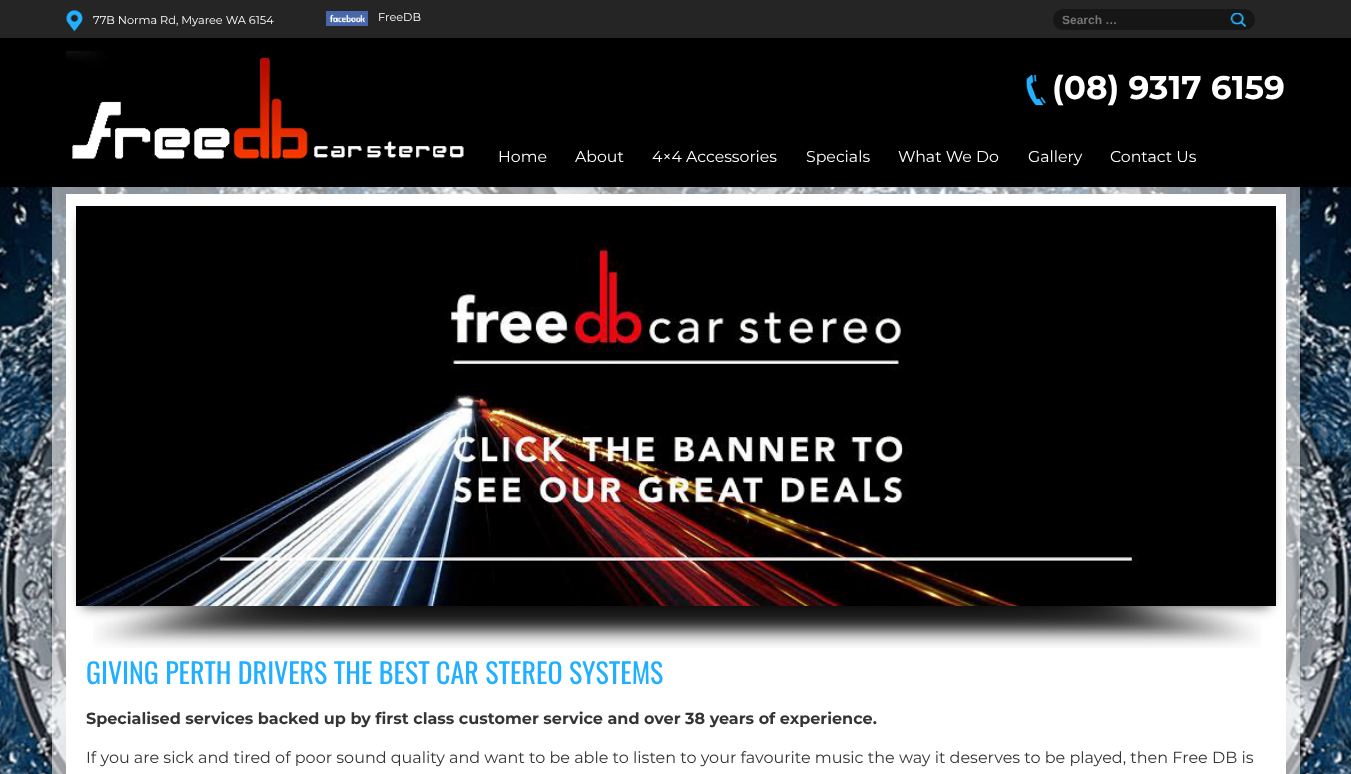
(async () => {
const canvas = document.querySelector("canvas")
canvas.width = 1351
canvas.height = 774
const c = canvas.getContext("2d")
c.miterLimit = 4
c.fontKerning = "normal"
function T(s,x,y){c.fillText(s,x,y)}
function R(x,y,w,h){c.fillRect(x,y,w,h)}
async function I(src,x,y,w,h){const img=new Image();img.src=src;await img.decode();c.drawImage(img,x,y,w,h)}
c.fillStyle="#000"
R(0,0,1351,774)
await I("1.png",0,187,1351,587)
c.fillStyle="#252525"
R(0,0,1351,38)
await I("2.png",66,10,17,22)
c.font="11.3px Montserrat"
c.fillStyle="#fff"
T("77B Norma Rd, Myaree WA 6154",93,24)
await I("3.png",326,11,42,15)
T("FreeDB",378,21)
c.fillStyle="#161616"
c.beginPath()
c.roundRect(1053,9,187,21,[10.5,0,0,10.5])
c.fill()
c.font="bold 12px Liberation Sans"
c.fillStyle="#757575"
T("Search …",1062,24)
c.fillStyle="#161616"
c.beginPath()
c.roundRect(1230,9,25,21,[0,10.5,10.5,0])
c.fill()
await I("4.png",1230,12,16,15)
await I("5.png",66,51,398,108)
await I("6.png",1026,74,20,32)
c.font="bold 32.75px Montserrat"
c.fillStyle="#fff"
T("(08) 9317 6159",1052,99)
c.font="15.75px Montserrat"
T("Home",498,162)
T("About",575,162)
T("4×4 Accessories",652,162)
T("Specials",806,162)
T("What We Do",898,162)
T("Gallery",1028,162)
T("Contact Us",1110,162)
R(66,194,1220,580)
c.fillStyle="#000000bf"
c.filter="blur(6.5px)"
c.beginPath()
c.rect(83,220,1186,386)
c.fill()
c.filter="none"
await I("7.png",76,206,1200,400)
await I("8.png",93,606,1168,42)
c.font="28px Oswald"
c.fillStyle="#22afff"
T("GIVING PERTH DRIVERS THE BEST CAR STEREO SYSTEMS",86,684)
c.font="bold 16px Montserrat"
c.fillStyle="#353535"
T("Specialised services backed up by first class customer service and over 38 years of experience.",86,724)
c.font="16px Montserrat"
T("If you are sick and tired of poor sound quality and want to be able to listen to your favourite music the way it deserves to be played, then Free DB is",86,763)
})()
